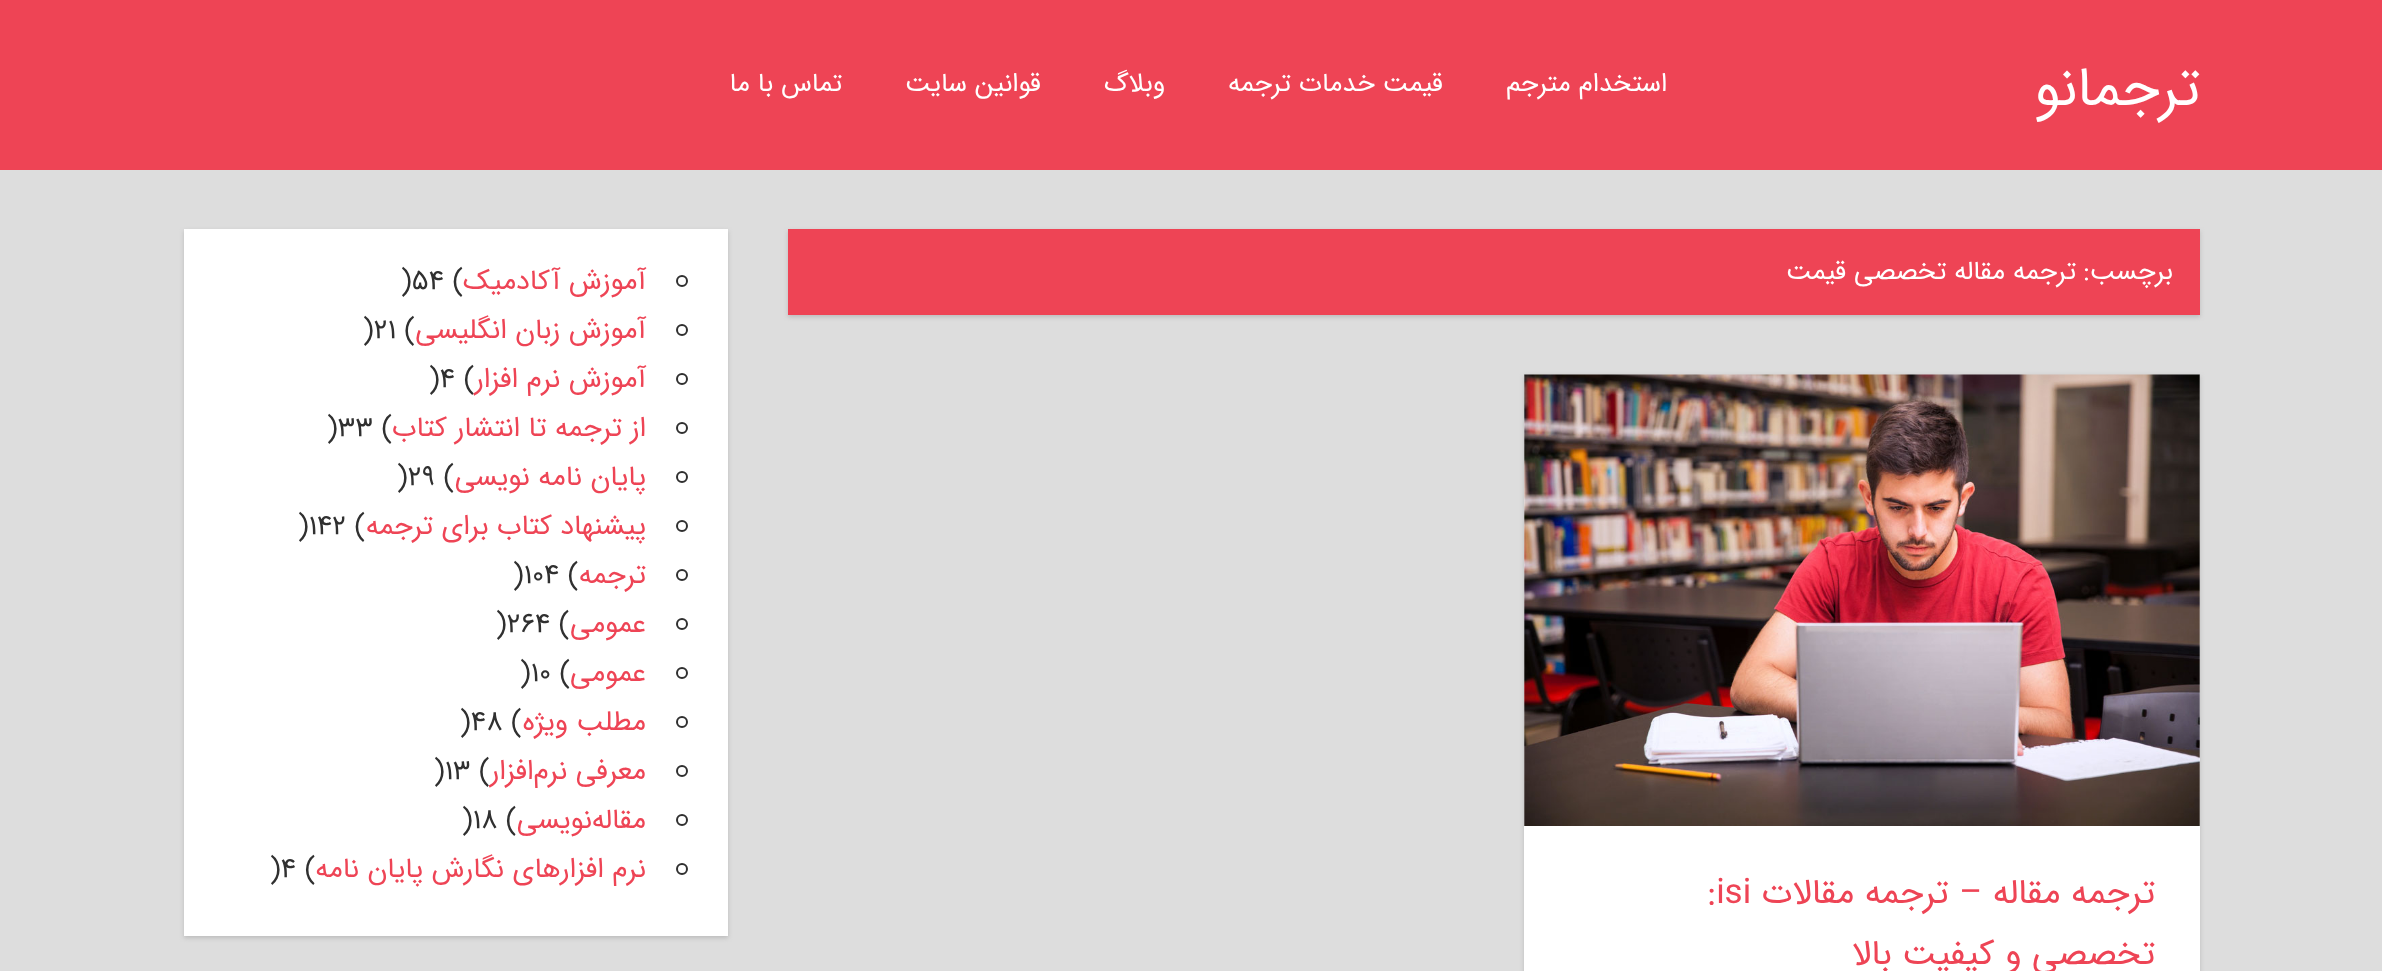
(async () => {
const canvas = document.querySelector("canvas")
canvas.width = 2382
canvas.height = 971
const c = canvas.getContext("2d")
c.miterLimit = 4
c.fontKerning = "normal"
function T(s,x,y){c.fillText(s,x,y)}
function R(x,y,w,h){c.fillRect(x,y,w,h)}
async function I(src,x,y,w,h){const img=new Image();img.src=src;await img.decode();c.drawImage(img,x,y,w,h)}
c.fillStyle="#ddd"
R(0,0,2382,971)
c.fillStyle="#e45"
R(0,0,2382,170)
c.direction="rtl"
c.font="56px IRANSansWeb"
c.fillStyle="#fff"
T("ترجمانو",2200,105)
c.font="26.25px IRANSansWeb"
T("استخدام مترجم",1667,91)
T("قیمت خدمات ترجمه",1443,91)
T("وبلاگ",1165,91)
T("قوانین سایت",1041,91)
T("تماس با ما",842,91)
c.fillStyle="#bbb"
c.filter="blur(2px)"
c.beginPath()
c.rect(788,231,1412,86)
c.fill()
c.filter="none"
c.fillStyle="#e45"
R(788,229,1412,86)
c.fillStyle="#fff"
T("برچسب:",2173,279)
T("ترجمه مقاله تخصصی قیمت",2076,279)
c.fillStyle="#bbb"
c.filter="blur(2px)"
c.beginPath()
c.rect(1524,376,676,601)
c.fill()
c.filter="none"
c.fillStyle="#fff"
R(1524,375,676,596)
await I("1.png",1524,374,676,452)
c.font="35px IRANSansWeb"
c.fillStyle="#e45"
T("ترجمه مقاله – ترجمه مقالات",2155,903)
c.direction="ltr"
T(":isi",1707,903)
c.direction="rtl"
T("تخصصی و کیفیت بالا",2155,964)
c.fillStyle="#bbb"
c.filter="blur(2px)"
c.beginPath()
c.rect(184,231,544,707)
c.fill()
c.filter="none"
c.fillStyle="#fff"
R(184,229,544,707)
c.beginPath()
c.arc(682,281,5,0,7)
c.strokeStyle="#303030"
c.lineWidth=2
c.stroke()
c.font="28px IRANSansWeb"
c.fillStyle="#e45"
T("آموزش آکادمیک",646,289)
c.direction="ltr"
c.fillStyle="#303030"
T(")۵۴ (",401,289)
c.beginPath()
c.arc(682,330,5,0,7)
c.stroke()
c.direction="rtl"
c.fillStyle="#e45"
T("آموزش زبان انگلیسی",646,338)
c.direction="ltr"
c.fillStyle="#303030"
T(")۲۱ (",363,338)
c.beginPath()
c.arc(682,379,5,0,7)
c.stroke()
c.direction="rtl"
c.fillStyle="#e45"
T("آموزش نرم افزار",646,387)
c.direction="ltr"
c.fillStyle="#303030"
T(")۴ (",429,387)
c.beginPath()
c.arc(682,428,5,0,7)
c.stroke()
c.direction="rtl"
c.fillStyle="#e45"
T("از ترجمه تا انتشار کتاب",646,436)
c.direction="ltr"
c.fillStyle="#303030"
T(")۳۳ (",327,436)
c.beginPath()
c.arc(682,477,5,0,7)
c.stroke()
c.direction="rtl"
c.fillStyle="#e45"
T("پایان‌ نامه نویسی",646,485)
c.direction="ltr"
c.fillStyle="#303030"
T(")۲۹ (",397,485)
c.beginPath()
c.arc(682,526,5,0,7)
c.stroke()
c.direction="rtl"
c.fillStyle="#e45"
T("پیشنهاد کتاب برای ترجمه",646,534)
c.direction="ltr"
c.fillStyle="#303030"
T(")۱۴۲ (",298,534)
c.beginPath()
c.arc(682,575,5,0,7)
c.stroke()
c.direction="rtl"
c.fillStyle="#e45"
T("ترجمه",646,583)
c.direction="ltr"
c.fillStyle="#303030"
T(")۱۰۴ (",513,583)
c.beginPath()
c.arc(682,624,5,0,7)
c.stroke()
c.direction="rtl"
c.fillStyle="#e45"
T("عمومی",646,632)
c.direction="ltr"
c.fillStyle="#303030"
T(")۲۶۴ (",496,632)
c.beginPath()
c.arc(682,673,5,0,7)
c.stroke()
c.direction="rtl"
c.fillStyle="#e45"
T("عمومی",646,681)
c.direction="ltr"
c.fillStyle="#303030"
T(")۱۰ (",520,681)
c.beginPath()
c.arc(682,722,5,0,7)
c.stroke()
c.direction="rtl"
c.fillStyle="#e45"
T("مطلب ویژه",646,730)
c.direction="ltr"
c.fillStyle="#303030"
T(")۴۸ (",460,730)
c.beginPath()
c.arc(682,771,5,0,7)
c.stroke()
c.direction="rtl"
c.fillStyle="#e45"
T("معرفی نرم‌افزار",646,779)
c.direction="ltr"
c.fillStyle="#303030"
T(")۱۳ (",434,779)
c.beginPath()
c.arc(682,820,5,0,7)
c.stroke()
c.direction="rtl"
c.fillStyle="#e45"
T("مقاله‌نویسی",646,828)
c.direction="ltr"
c.fillStyle="#303030"
T(")۱۸ (",462,828)
c.beginPath()
c.arc(682,869,5,0,7)
c.stroke()
c.direction="rtl"
c.fillStyle="#e45"
T("نرم افزارهای نگارش پایان نامه",646,877)
c.direction="ltr"
c.fillStyle="#303030"
T(")۴ (",270,877)
})()
